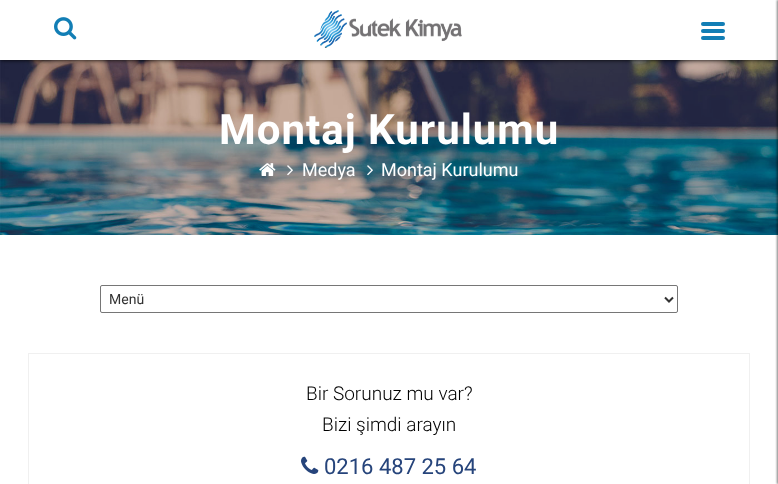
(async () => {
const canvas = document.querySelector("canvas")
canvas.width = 778
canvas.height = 484
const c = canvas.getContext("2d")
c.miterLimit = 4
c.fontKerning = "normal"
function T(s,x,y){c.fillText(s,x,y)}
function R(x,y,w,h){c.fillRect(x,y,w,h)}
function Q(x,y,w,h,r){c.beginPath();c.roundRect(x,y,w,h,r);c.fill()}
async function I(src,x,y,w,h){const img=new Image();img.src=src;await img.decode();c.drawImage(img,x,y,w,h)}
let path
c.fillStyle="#fff"
R(0,0,778,484)
await I("3.png",0,60,778,175)
c.fillStyle="#000"
c.filter="blur(2px)"
c.beginPath()
c.rect(0,0,778,60)
c.fill()
c.filter="none"
c.fillStyle="#fff"
R(0,0,778,60)
await I("1.png",54,17,23,23)
await I("2.png",314,10,148,38)
c.fillStyle="#127eb5"
Q(701,22,24,4,2)
Q(701,29,24,4,2)
Q(701,36,24,4,2)
c.letterSpacing="1px"
c.font="bold 42px Roboto"
c.fillStyle="#fff"
T("Montaj Kurulumu",219,144)
await I("4.png",259,163,17,13)
await I("5.png",287,165,6,11)
c.letterSpacing="0px"
c.font="18px Roboto"
T("Medya",302,176)
await I("6.png",367,165,6,11)
T("Montaj Kurulumu",381,176)
c.fillStyle="#00000080"
c.filter="blur(1px)"
c.beginPath()
c.rect(777,0,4,484)
c.fill()
c.filter="none"
c.beginPath()
c.roundRect(100.5,285.5,577,27,1.5)
c.strokeStyle="#767676"
c.stroke()
path = new Path2D("M665 297.5l4 4l4-4")
c.strokeStyle="#333"
c.lineWidth=2
c.stroke(path)
c.font="14px Roboto"
c.fillStyle="#333"
T("Menü",109,304)
c.strokeStyle="#f0f0f0"
c.lineWidth=1
c.strokeRect(28.5,353.5,721,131)
c.font="300 19px Roboto"
c.fillStyle="#000"
T("Bir Sorunuz mu var?",306,400)
T("Bizi şimdi arayın",322,431)
await I("7.png",301,456,18,18)
c.font="22px Roboto"
c.fillStyle="#26447b"
T("0216 487 25 64",324,474)
})()
